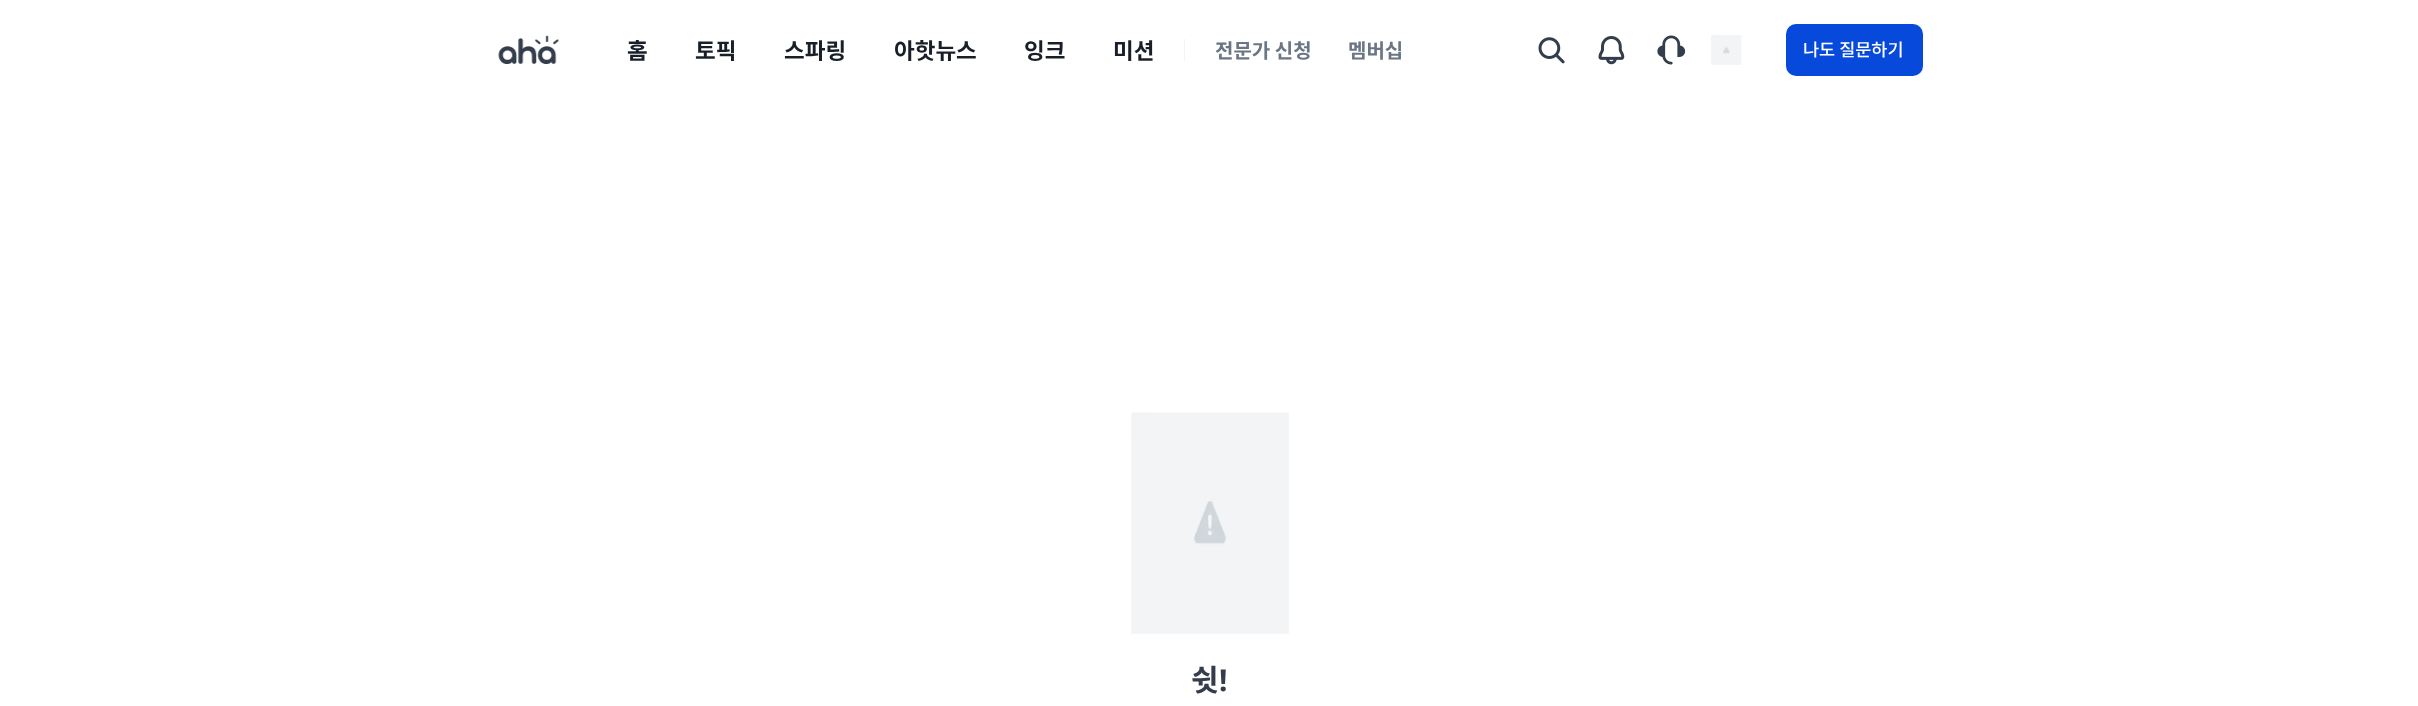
(async () => {
const canvas = document.querySelector("canvas")
canvas.width = 2418
canvas.height = 706
const c = canvas.getContext("2d")
c.miterLimit = 4
c.fontKerning = "normal"
function T(s,x,y){c.fillText(s,x,y)}
function R(x,y,w,h){c.fillRect(x,y,w,h)}
function Q(x,y,w,h,r){c.beginPath();c.roundRect(x,y,w,h,r);c.fill()}
async function I(src,x,y,w,h){const img=new Image();img.src=src;await img.decode();c.drawImage(img,x,y,w,h)}
c.fillStyle="#fff"
R(0,0,2418,706)
await I("1.png",498,35,62,29)
c.font="bold 22.5px Noto Sans KR"
c.fillStyle="#191f28"
T("홈",627,59)
T("토픽",695,59)
T("스파링",784,59)
T("아핫뉴스",894,59)
T("잉크",1024,59)
T("미션",1113,59)
c.fillStyle="#f2f4f6"
R(1184,39,1,22)
c.font="bold 20px Noto Sans KR"
c.fillStyle="#6b7684"
T("전문가 신청",1215,58)
T("멤버십",1348,58)
await I("2.png",1538,37,27,27)
await I("3.png",1598,36,27,29)
await I("4.png",1657,35,29,30)
await I("5.png",1711,35,31,30)
c.fillStyle="#0649db"
Q(1786,24,137,52,10)
c.font="500 17.5px Noto Sans KR"
c.fillStyle="#fff"
T("나도 질문하기",1803,56)
await I("6.png",1131,412,158,222)
c.font="bold 30px Noto Sans KR"
c.fillStyle="#333d4b"
T("쉿",1191,691)
c.font="bold 30px Noto Sans"
T("!",1219,691)
})()
